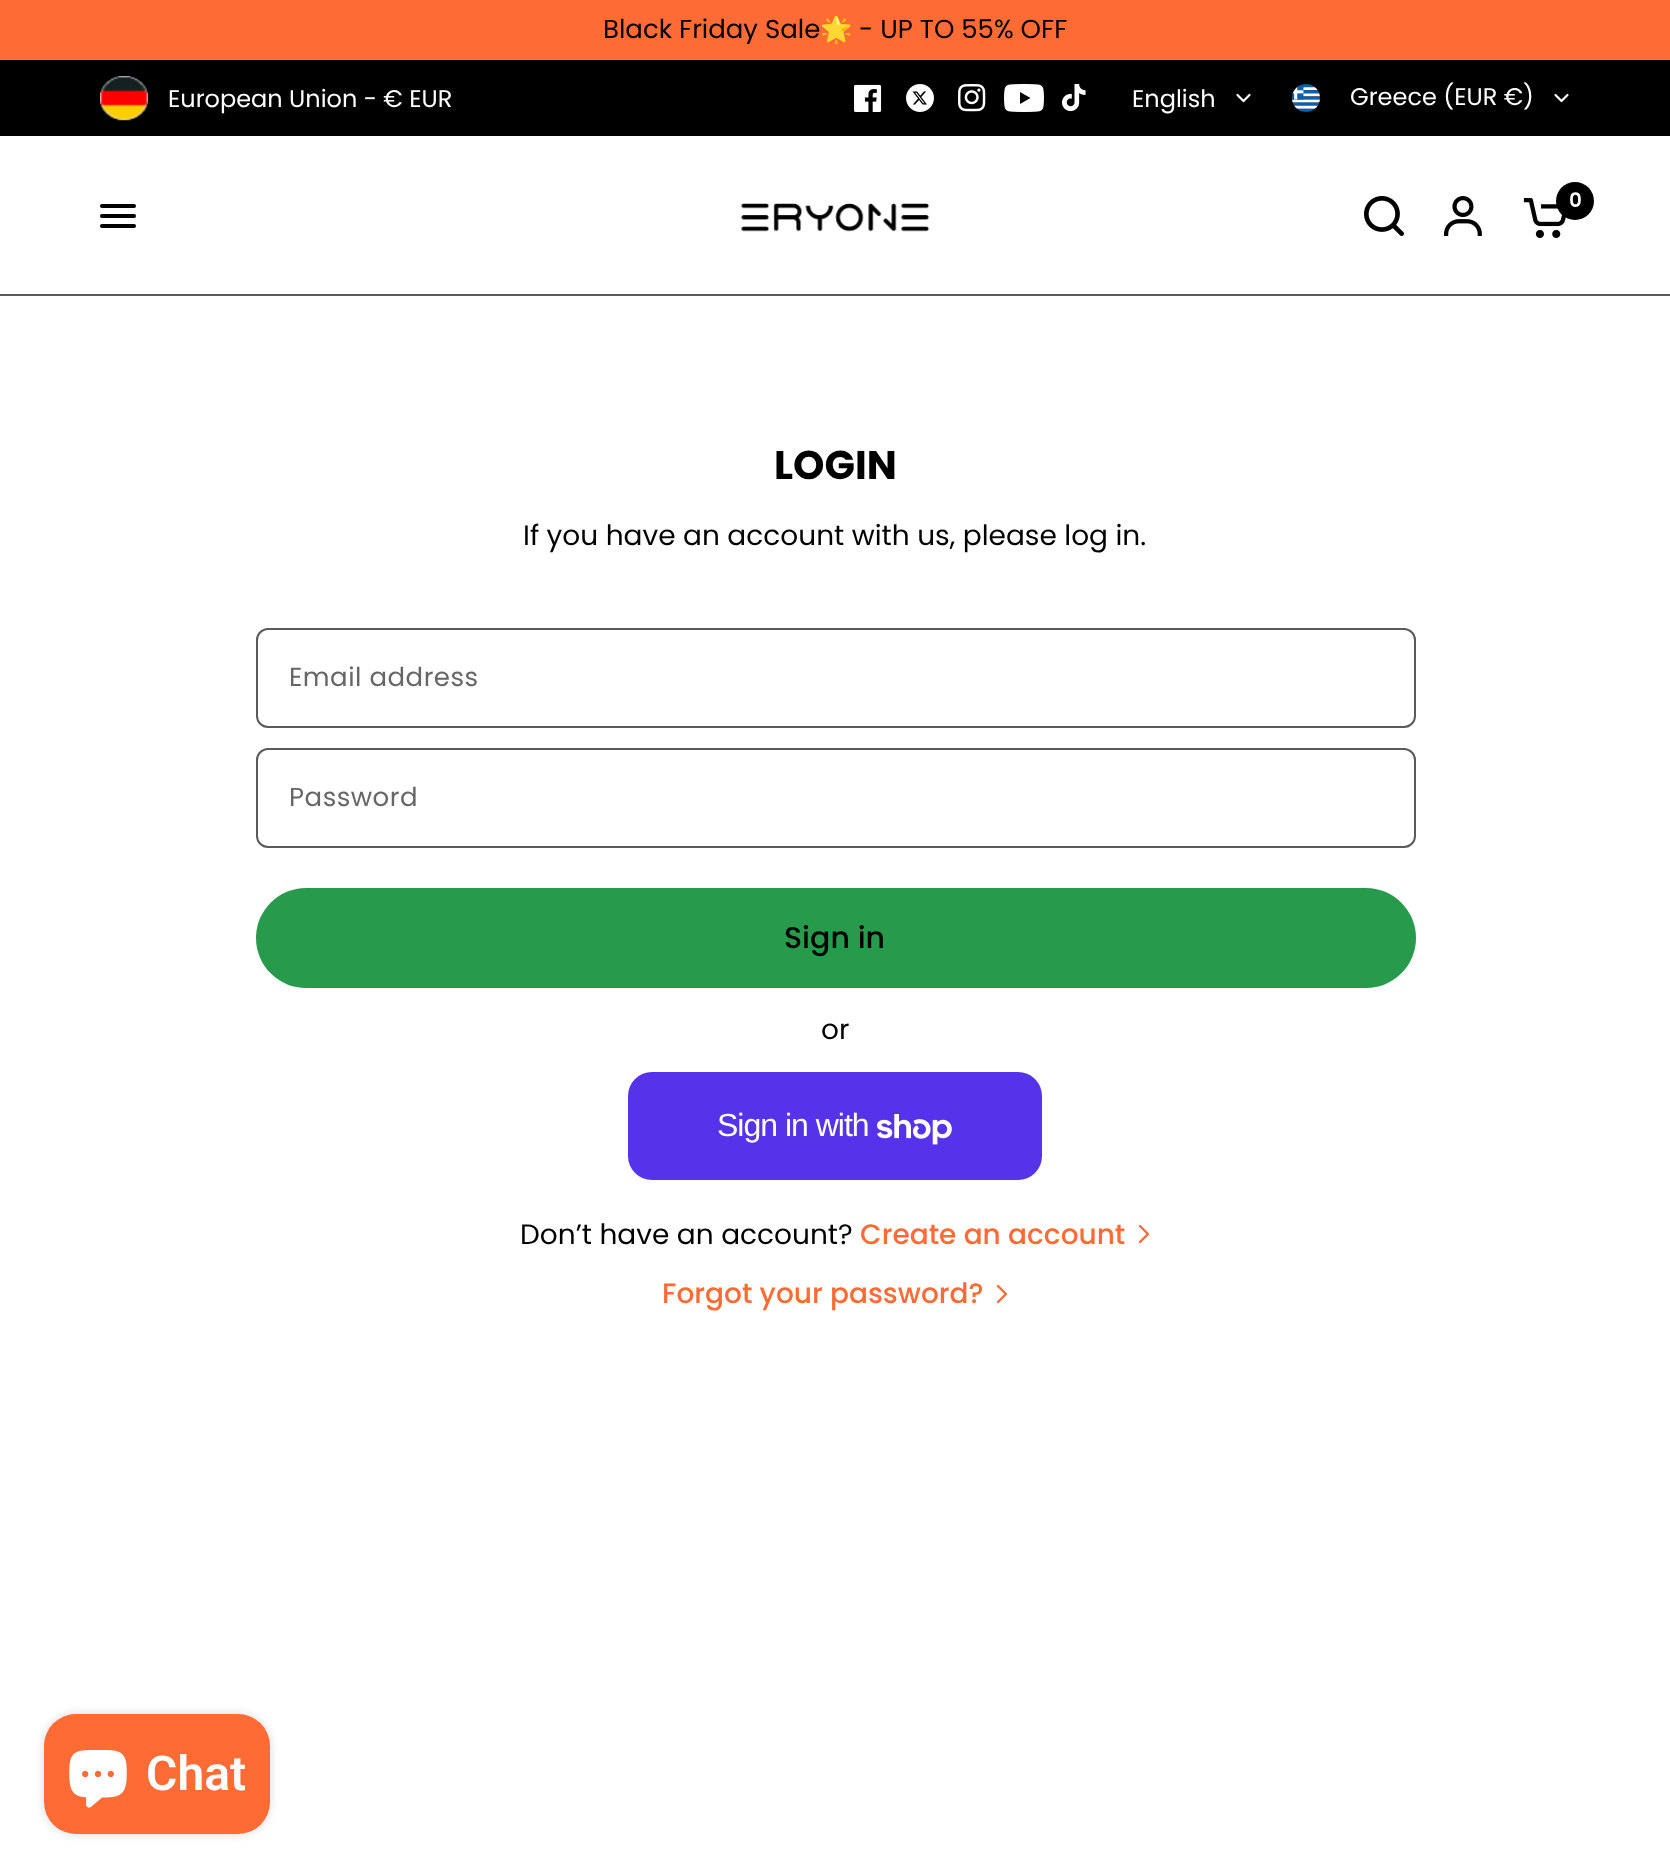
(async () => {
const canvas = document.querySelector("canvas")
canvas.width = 1670
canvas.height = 1875
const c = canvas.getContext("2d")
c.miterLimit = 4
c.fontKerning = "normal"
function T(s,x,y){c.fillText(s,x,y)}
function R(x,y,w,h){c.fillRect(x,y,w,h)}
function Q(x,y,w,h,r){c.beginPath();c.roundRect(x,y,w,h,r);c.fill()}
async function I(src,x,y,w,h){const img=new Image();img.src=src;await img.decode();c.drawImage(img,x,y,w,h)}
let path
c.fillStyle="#000"
R(0,0,1670,1875)
c.fillStyle="#ff6b35"
R(0,0,1670,60)
c.save()
c.beginPath()
c.rect(336,16,1000,28)
c.clip()
c.font="26px Poppins"
c.fillStyle="#000"
T("Black Friday Sale",603,38)
c.font="26px Noto Color Emoji"
T("🌟",820,38)
c.restore()
c.font="26px Poppins"
c.fillStyle="#000"
T("- UP TO 55% OFF",859,38)
await I("1.png",100,76,48,45)
c.font="24px Poppins"
c.fillStyle="#fff"
T("European Union - € EUR",168,107)
await I("2.png",854,84,28,28)
await I("3.png",906,84,28,28)
await I("4.png",958,84,28,28)
await I("5.png",1004,84,40,28)
await I("6.png",1062,84,24,28)
T("English",1132,107)
path = new Path2D("M1249.5 95l-6 6l-6-6")
c.strokeStyle="#fff"
c.lineWidth=2.2
c.lineCap="round"
c.lineJoin="round"
c.stroke(path)
await I("7.png",1292,84,28,28)
T("Greece (EUR €)",1350,105)
path = new Path2D("M1567.5 95l-6 6l-6-6")
c.stroke(path)
R(0,136,1670,158)
await I("8.png",1364,196,40,40)
await I("9.png",1444,196,38,40)
await I("10.png",1523,198,43,40)
c.fillStyle="#000"
c.beginPath()
c.arc(1575,201,19,0,7)
c.fill()
c.font="600 20px Poppins"
c.fillStyle="#fff"
T("0",1569,207)
c.fillStyle="#000"
Q(100,204,36,4,2)
Q(100,214,36,4,2)
Q(100,224,36,4,2)
await I("11.png",740,203,190,29)
c.fillStyle="#5a5a5a"
R(0,294,1670,2)
c.fillStyle="#fff"
R(0,296,1670,1579)
c.font="bold 40px Poppins"
c.fillStyle="#000"
T("LOGIN",774,479)
c.font="28px Poppins"
T("If you have an account with us, please log in.",523,545)
c.beginPath()
c.roundRect(257,629,1158,98,11)
c.strokeStyle="#5a5a5a"
c.lineWidth=2
c.lineJoin="miter"
c.stroke()
c.letterSpacing="0.5px"
c.font="26px Poppins"
c.fillStyle="#666"
T("Email address",289,686)
c.beginPath()
c.roundRect(257,749,1158,98,11)
c.stroke()
T("Password",289,806)
c.fillStyle="#279a4b"
Q(256,888,1160,100,50)
c.letterSpacing="0px"
c.font="500 30px Poppins"
c.fillStyle="#000"
T("Sign in",784,948)
c.font="28px Poppins"
T("or",821,1039)
c.fillStyle="#5433eb"
Q(628,1072,414,108,24)
c.letterSpacing="-1px"
c.font="32px Liberation Sans"
c.fillStyle="#fff"
T("Sign in with",717,1136)
await I("12.png",877,1114,75,31)
c.letterSpacing="0px"
c.font="28px Poppins"
c.fillStyle="#000"
T("Don’t have an account?",520,1244)
c.font="500 28px Poppins"
c.fillStyle="#ff6b35"
T("Create an account",860,1244)
path = new Path2D("M1140 1226l8 8l-8 8")
c.strokeStyle="#ff6b35"
c.lineWidth=2.4
c.lineJoin="round"
c.stroke(path)
T("Forgot your password?",662,1303)
path = new Path2D("M998 1286l8 8l-8 8")
c.stroke(path)
c.fillStyle="#00000026"
c.filter="blur(5px)"
c.beginPath()
c.roundRect(44,1714,226,120,32)
c.fill()
c.filter="none"
c.fillStyle="#ff6b35"
Q(44,1714,226,120,32)
await I("13.png",69,1750,58,58)
c.font="600 48px Roboto"
c.fillStyle="#fff"
T("Chat",146,1790)
})()
